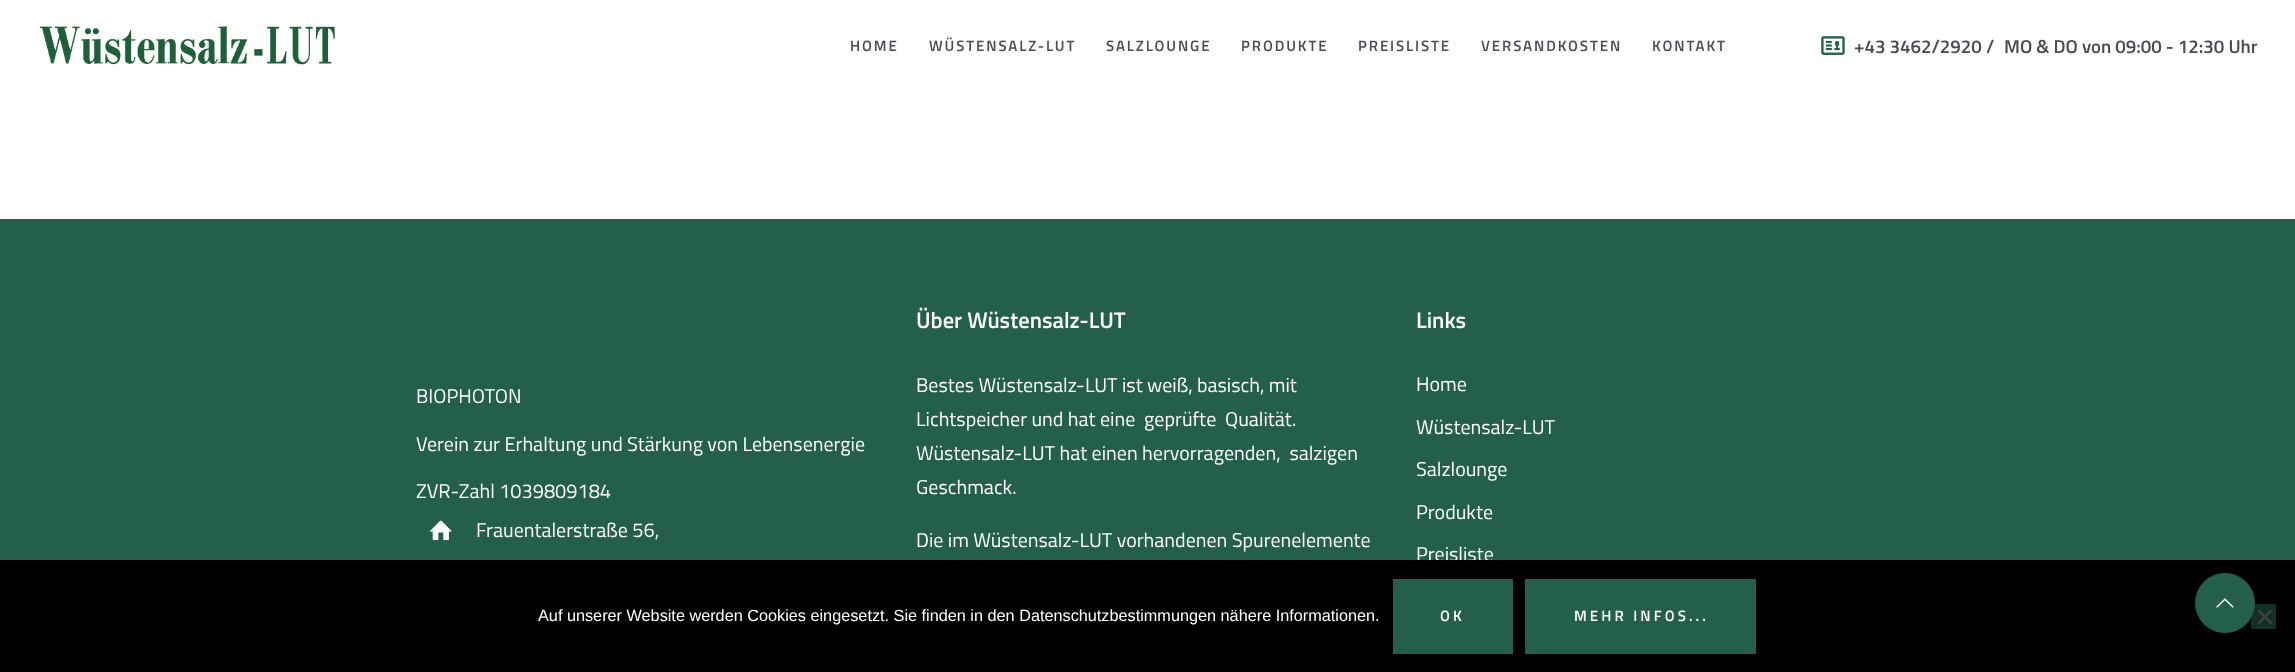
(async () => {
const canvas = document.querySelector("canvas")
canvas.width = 2295
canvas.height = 672
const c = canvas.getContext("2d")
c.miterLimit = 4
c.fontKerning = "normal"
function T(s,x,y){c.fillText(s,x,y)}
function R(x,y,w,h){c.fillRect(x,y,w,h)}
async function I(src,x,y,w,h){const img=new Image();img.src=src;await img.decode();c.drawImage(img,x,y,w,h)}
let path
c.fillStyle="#fff"
R(0,0,2295,672)
await I("1.png",39,26,296,39)
c.letterSpacing="1.9px"
c.font="600 15px Titillium Web"
c.fillStyle="#4c4b51"
T("HOME",850,51)
T("WÜSTENSALZ-LUT",929,51)
T("SALZLOUNGE",1106,51)
T("PRODUKTE",1241,51)
T("PREISLISTE",1358,51)
T("VERSANDKOSTEN",1481,51)
T("KONTAKT",1652,51)
await I("2.png",1821,36,24,19)
c.letterSpacing="0px"
c.font="600 18.75px Titillium Web"
T("+43 3462/2920 /",1854,53)
T("MO & DO von 09:00 - 12:30 Uhr",2004,53)
c.fillStyle="#235f4a"
R(0,219,2295,341)
c.font="20px Titillium Web"
c.fillStyle="#fff"
T("BIOPHOTON",416,403)
T("Verein zur Erhaltung und Stärkung von Lebensenergie",416,451)
T("ZVR-Zahl 1039809184",416,498)
await I("3.png",430,520,22,20)
T("Frauentalerstraße 56,",476,537)
c.font="600 22.5px Titillium Web"
T("Über Wüstensalz-LUT",916,328)
c.font="20px Titillium Web"
T("Bestes Wüstensalz-LUT ist weiß, basisch, mit",916,392)
T("Lichtspeicher und hat eine  geprüfte  Qualität.",916,426)
T("Wüstensalz-LUT hat einen hervorragenden,  salzigen",916,460)
T("Geschmack.",916,494)
T("Die im Wüstensalz-LUT vorhandenen Spurenelemente",916,547)
c.font="600 22.5px Titillium Web"
T("Links",1416,328)
c.font="20px Titillium Web"
T("Home",1416,391)
T("Wüstensalz-LUT",1416,434)
T("Salzlounge",1416,476)
T("Produkte",1416,519)
T("Preisliste",1416,561)
c.fillStyle="#000"
R(0,560,2295,112)
c.font="16.25px Liberation Sans"
c.fillStyle="#fff"
T("Auf unserer Website werden Cookies eingesetzt. Sie finden in den Datenschutzbestimmungen nähere Informationen.",538,621)
c.fillStyle="#235f4a"
R(1393,579,120,75)
c.letterSpacing="3.1px"
c.font="600 15px Titillium Web"
c.fillStyle="#fff"
T("OK",1440,621)
c.fillStyle="#235f4a"
R(1525,579,231,75)
c.fillStyle="#fff"
T("MEHR INFOS...",1574,621)
c.fillStyle="#123025"
R(2251,604,25,25)
c.fillStyle="#404040"
path = new Path2D("M2270.5 609.5l2 1.5l-13 13.5l-2-2z")
c.fill(path)
path = new Path2D("M2257.5 611l2-1.5l13 13l-2 2z")
c.fill(path)
c.fillStyle="#235f4a"
c.beginPath()
c.arc(2225,603,30,0,7)
c.fill()
await I("4.png",2216,598,18,10)
})()
